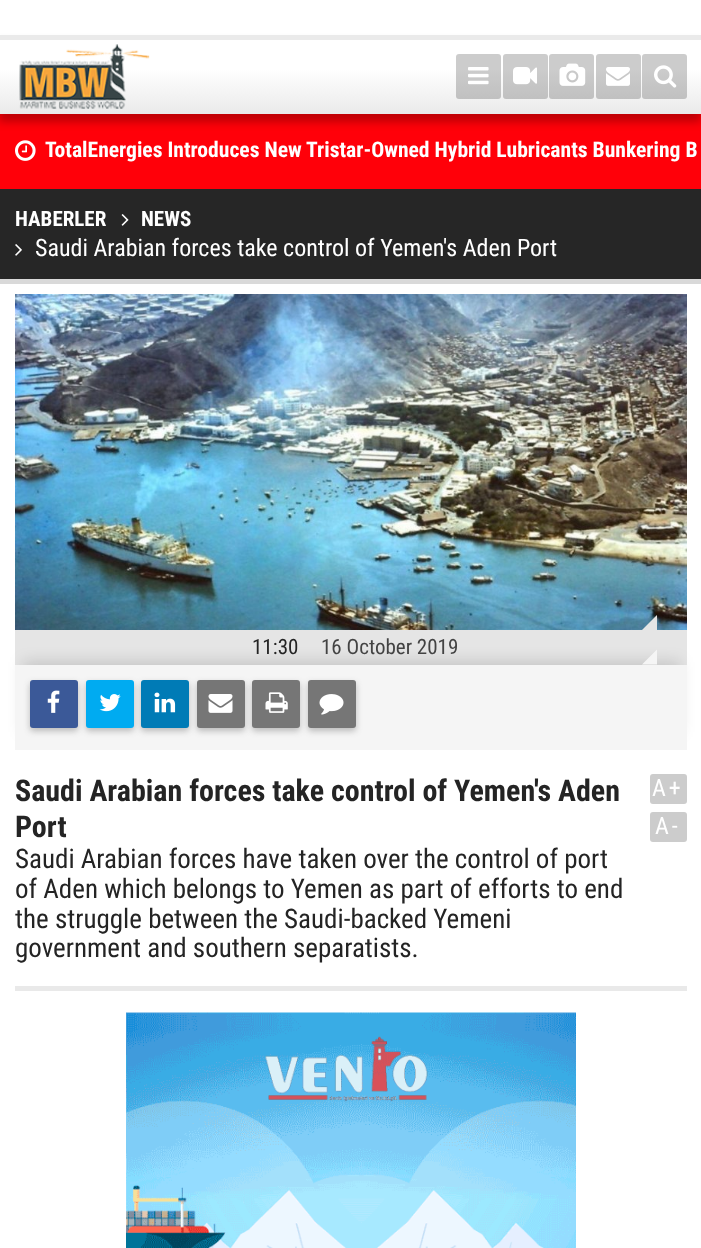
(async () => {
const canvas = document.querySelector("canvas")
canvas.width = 701
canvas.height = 1248
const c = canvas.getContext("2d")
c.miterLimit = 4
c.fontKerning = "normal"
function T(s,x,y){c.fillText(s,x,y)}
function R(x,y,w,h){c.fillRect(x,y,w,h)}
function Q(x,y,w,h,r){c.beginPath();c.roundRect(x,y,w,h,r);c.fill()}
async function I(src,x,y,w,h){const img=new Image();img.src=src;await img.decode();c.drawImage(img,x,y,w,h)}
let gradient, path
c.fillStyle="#fff"
R(0,0,701,1248)
c.fillStyle="#ff0009"
R(0,114,701,75)
c.fillStyle="#00000040"
c.filter="blur(4px)"
c.beginPath()
c.rect(-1,42,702,80)
c.fill()
c.filter="none"
gradient = c.createLinearGradient(351,39,351,114)
gradient.addColorStop(.4,"#fff")
gradient.addColorStop(1,"#eaeaea")
c.fillStyle = gradient
R(0,40,701,74)
c.fillStyle="#eaeaea"
R(0,35,701,5)
await I("1.png",19,44,131,65)
c.fillStyle="#00000033"
Q(456,54,45,45,3)
await I("2.png",468,67,21,18)
Q(503,54,45,45,3)
await I("3.png",513,67,24,18)
Q(549,54,45,45,3)
await I("4.png",559,63,27,23)
Q(596,54,45,45,3)
await I("5.png",606,67,24,19)
Q(642,54,45,45,3)
await I("6.png",654,65,23,23)
await I("7.png",15,140,21,21)
c.font="bold 21.6px Roboto Condensed"
c.fillStyle="#fff"
T("TotalEnergies Introduces New Tristar-Owned Hybrid Lubricants Bunkering B",45,157)
c.fillStyle="#262626"
R(0,189,701,90)
c.font="bold 21px Roboto Condensed"
c.fillStyle="#fff"
T("HABERLER",15,226)
await I("8.png",121,214,8,12)
T("NEWS",141,226)
await I("9.png",15,244,7,12)
c.font="24px Roboto Condensed"
T("Saudi Arabian forces take control of Yemen's Aden Port",35,256)
c.fillStyle="#d9d9d9"
R(0,279,701,5)
await I("10.png",15,294,672,336)
c.fillStyle="#e5e5e5"
R(15,630,672,35)
c.fillStyle="#00000026"
c.filter="blur(7.5px)"
c.beginPath()
c.rect(23,662,657,70)
c.fill()
c.filter="none"
c.fillStyle="#f5f5f5"
R(15,665,672,85)
path = new Path2D("M657 664.5h-15l15-15z")
c.fill(path)
c.fillStyle="#3232324d"
c.filter="blur(3px)"
c.beginPath()
c.roundRect(30,683,48,48,3)
c.fill()
c.filter="none"
c.fillStyle="#3b5998"
Q(30,680,48,48,3)
await I("11.png",47,690,13,23)
c.fillStyle="#3232324d"
c.filter="blur(3px)"
c.beginPath()
c.roundRect(86,683,48,48,3)
c.fill()
c.filter="none"
c.fillStyle="#00abf1"
Q(86,680,48,48,3)
await I("12.png",99,694,22,18)
c.fillStyle="#3232324d"
c.filter="blur(3px)"
c.beginPath()
c.roundRect(141,683,48,48,3)
c.fill()
c.filter="none"
c.fillStyle="#007bb6"
Q(141,680,48,48,3)
await I("13.png",154,692,22,21)
c.fillStyle="#3232324d"
c.filter="blur(3px)"
c.beginPath()
c.roundRect(197,683,48,48,3)
c.fill()
c.filter="none"
c.fillStyle="#767676"
Q(197,680,48,48,3)
await I("14.png",208,694,25,19)
c.fillStyle="#3232324d"
c.filter="blur(3px)"
c.beginPath()
c.roundRect(252,683,48,48,3)
c.fill()
c.filter="none"
c.fillStyle="#767676"
Q(252,680,48,48,3)
await I("15.png",265,692,23,21)
c.fillStyle="#3232324d"
c.filter="blur(3px)"
c.beginPath()
c.roundRect(308,683,48,48,3)
c.fill()
c.filter="none"
c.fillStyle="#767676"
Q(308,680,48,48,3)
await I("16.png",319,694,25,21)
c.fillStyle="#e5e5e5"
path = new Path2D("M657 630h-15l15-15z")
c.fill(path)
c.font="21px Roboto Condensed"
c.fillStyle="#242424"
T("11:30",252,654)
c.fillStyle="#434343"
T("16 October 2019",321,654)
c.fillStyle="#e9e9e9"
R(15,986,672,5)
c.font="bold 30px Roboto Condensed"
c.fillStyle="#242424"
T("Saudi Arabian forces take control of Yemen's Aden",15,801)
T("Port",15,837)
c.fillStyle="#ccc"
Q(650,774,37,30,3)
c.letterSpacing="3px"
c.font="24px Roboto Condensed"
c.fillStyle="#fff"
T("A+",652,796)
c.fillStyle="#ccc"
Q(650,812,37,30,3)
c.fillStyle="#fff"
T("A-",655,834)
c.letterSpacing="0px"
c.font="27px Roboto Condensed"
c.fillStyle="#242424"
T("Saudi Arabian forces have taken over the control of port",15,868)
T("of Aden which belongs to Yemen as part of efforts to end",15,898)
T("the struggle between the Saudi-backed Yemeni",15,928)
T("government and southern separatists.",15,957)
await I("17.png",126,1012,450,236)
})()
